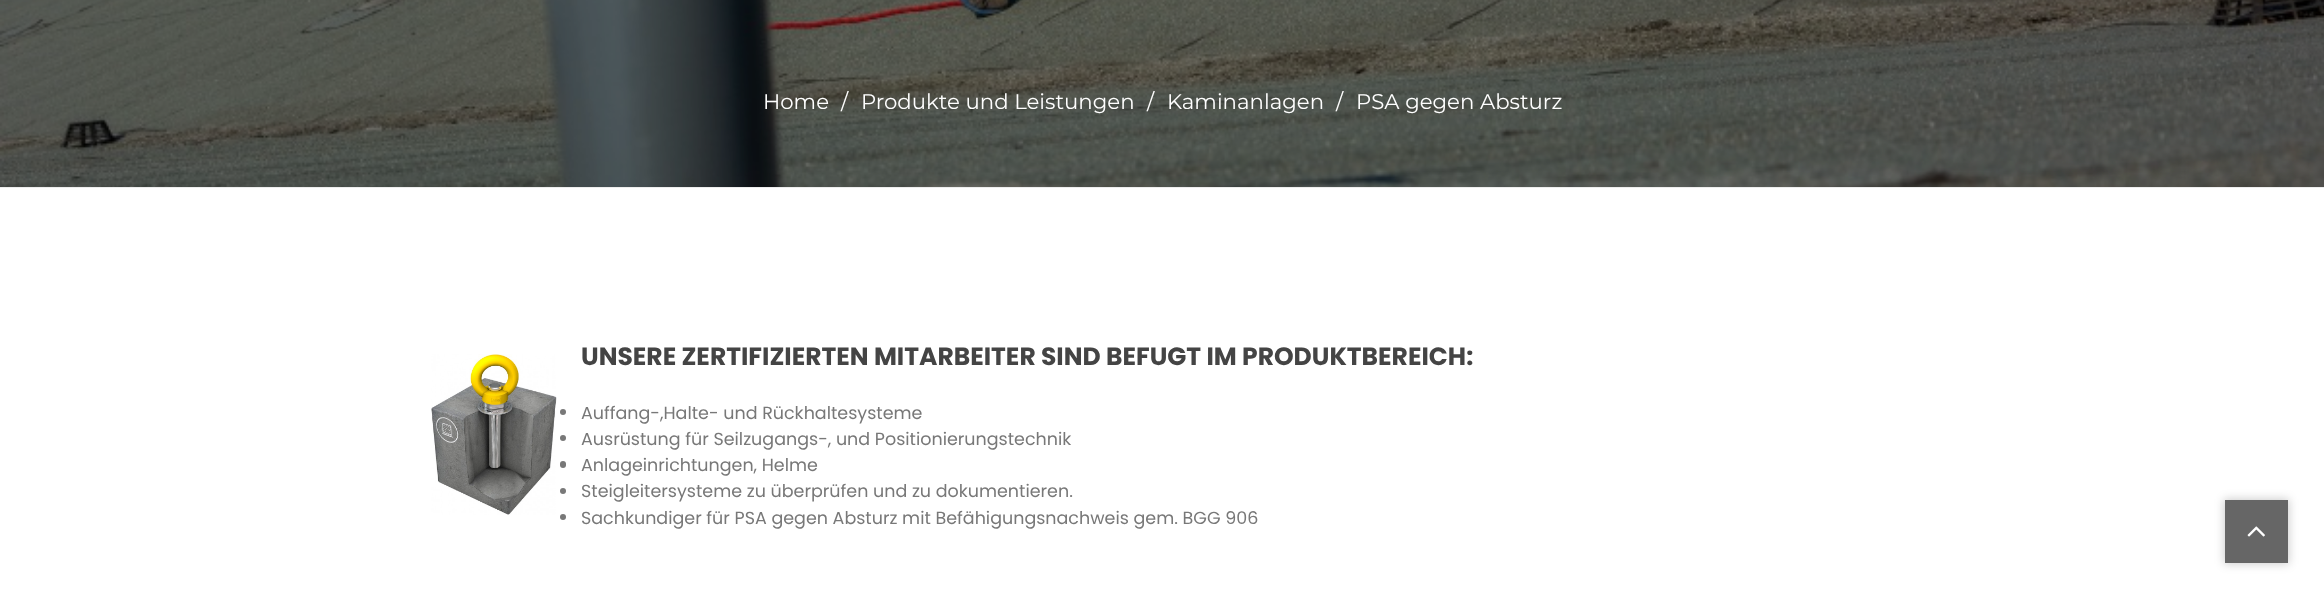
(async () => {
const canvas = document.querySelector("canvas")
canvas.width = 2324
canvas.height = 599
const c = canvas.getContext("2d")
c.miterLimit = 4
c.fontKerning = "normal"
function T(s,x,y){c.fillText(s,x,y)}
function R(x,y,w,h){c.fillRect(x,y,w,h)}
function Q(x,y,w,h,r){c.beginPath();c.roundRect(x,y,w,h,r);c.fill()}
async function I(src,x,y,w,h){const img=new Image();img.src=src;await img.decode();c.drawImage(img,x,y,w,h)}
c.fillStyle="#fff"
R(0,0,2324,599)
c.fillStyle="#ededed"
R(0,187,2324,1)
await I("1.png",0,0,2324,187)
c.font="21.25px Montserrat"
c.fillStyle="#fff"
T("Home",763,109)
T("/",841,109)
T("Produkte und Leistungen",861,109)
T("/",1147,109)
T("Kaminanlagen",1167,109)
T("/",1336,109)
T("PSA gegen Absturz",1356,109)
await I("2.png",431,354,126,161)
c.font="bold 25px Poppins"
c.fillStyle="#444"
T("UNSERE ZERTIFIZIERTEN MITARBEITER SIND BEFUGT IM PRODUKTBEREICH:",581,365)
c.fillStyle="#787878"
c.beginPath()
c.arc(563,412,3,0,7)
c.fill()
c.font="17.5px Poppins"
T("Auffang-,Halte- und Rückhaltesysteme",581,419)
c.beginPath()
c.arc(563,438,3,0,7)
c.fill()
T("Ausrüstung für Seilzugangs-, und Positionierungstechnik",581,445)
Q(560,461,6,7,3)
T("Anlageinrichtungen, Helme",581,471)
c.beginPath()
c.arc(563,491,3,0,7)
c.fill()
T("Steigleitersysteme zu überprüfen und zu dokumentieren.",581,497)
c.beginPath()
c.arc(563,517,3,0,7)
c.fill()
T("Sachkundiger für PSA gegen Absturz mit Befähigungsnachweis gem. BGG 906",581,524)
c.fillStyle="#00000033"
c.filter="blur(5px)"
c.beginPath()
c.rect(2224,499,65,65)
c.fill()
c.filter="none"
c.fillStyle="#666"
R(2225,500,63,63)
await I("3.png",2247,526,18,11)
})()
